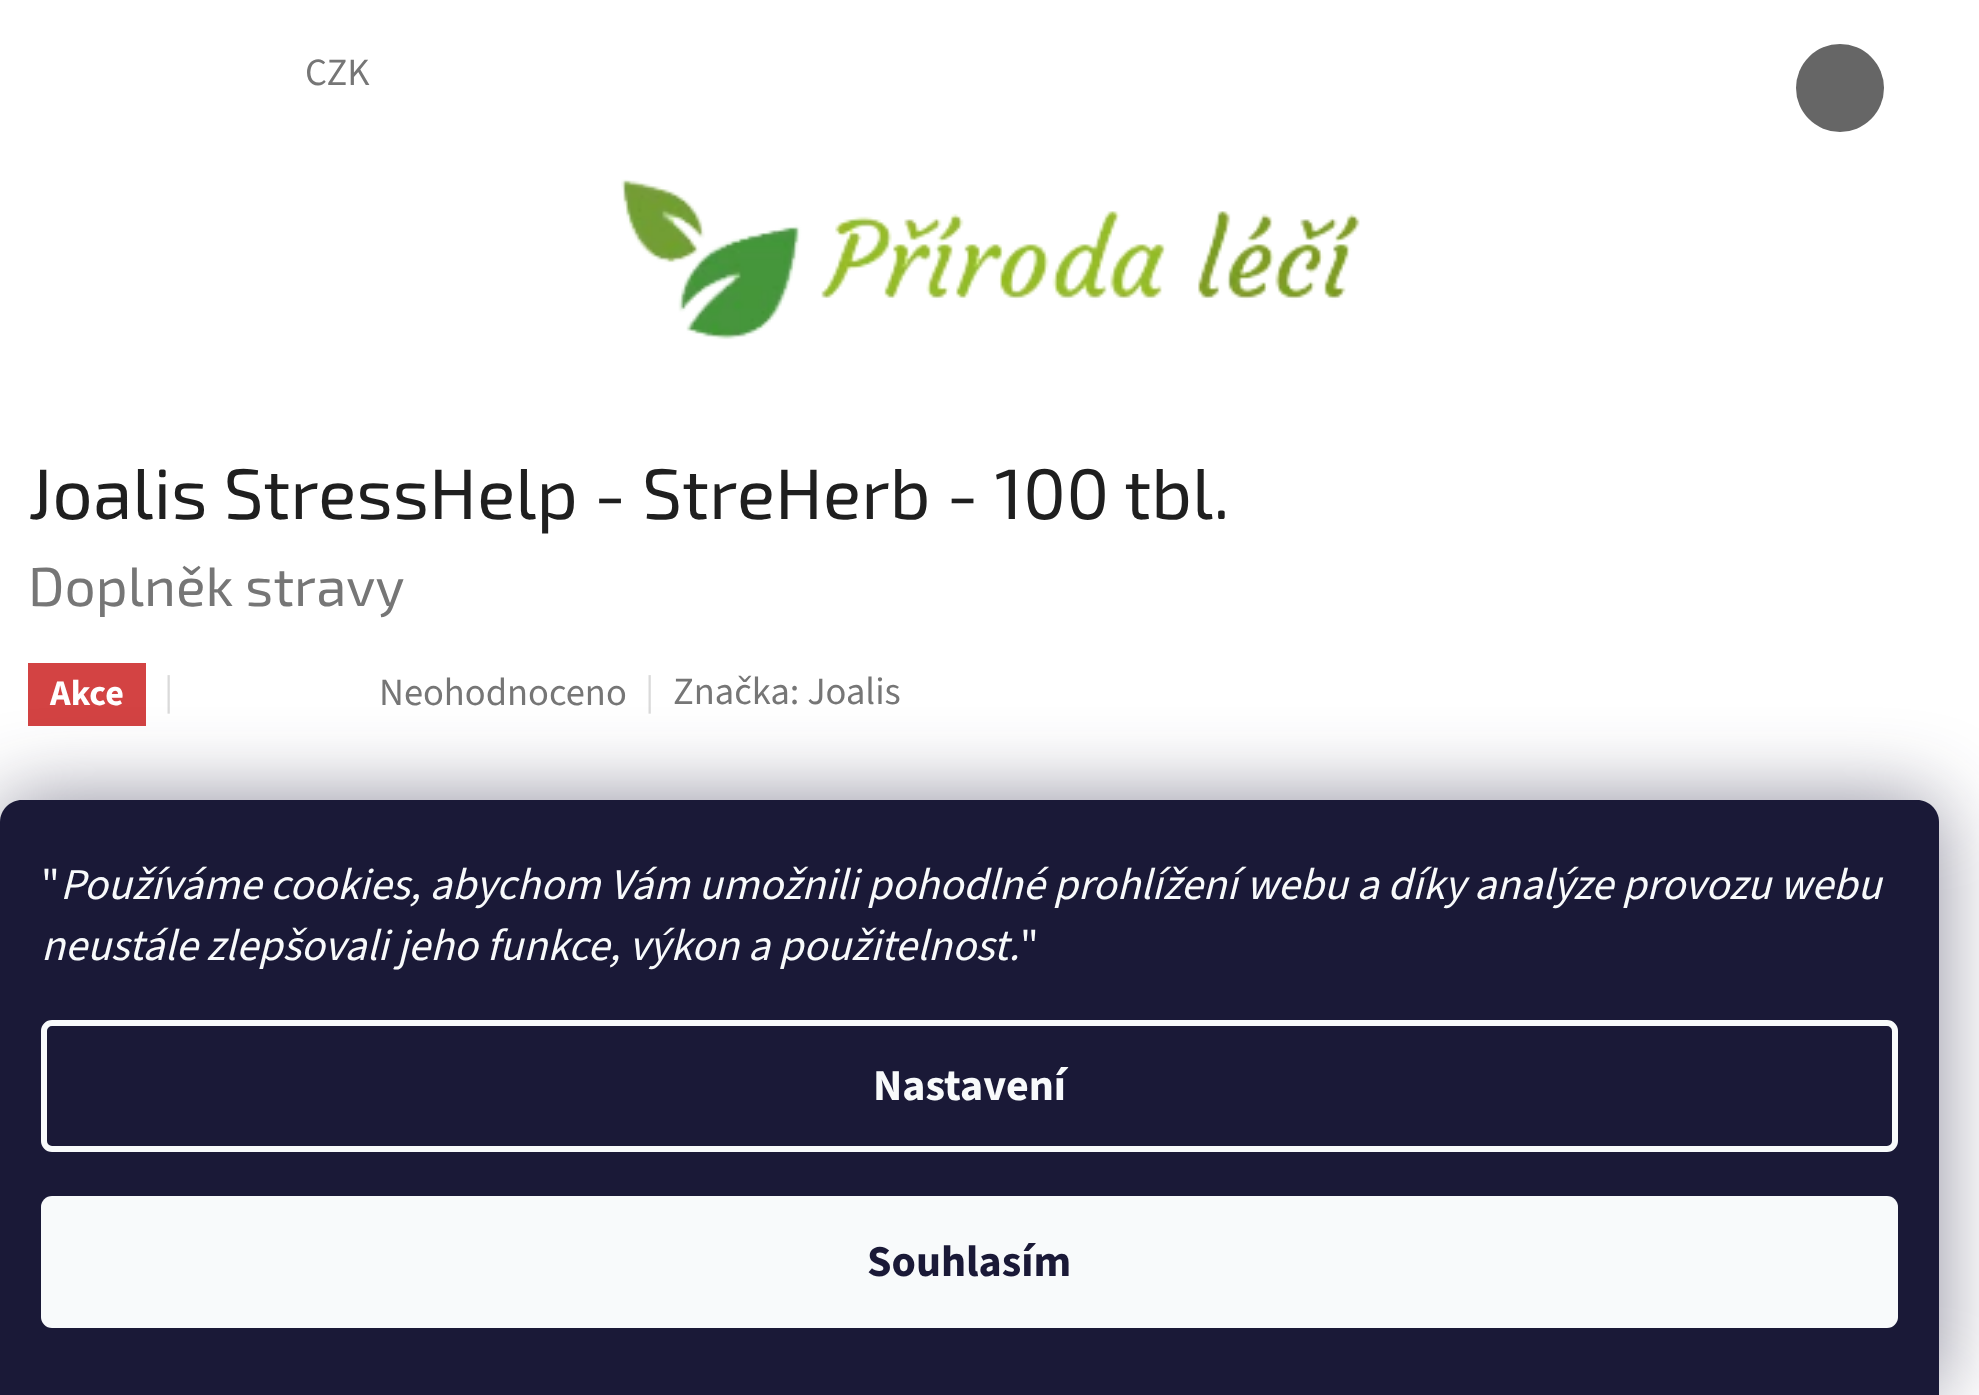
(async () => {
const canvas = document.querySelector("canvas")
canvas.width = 1979
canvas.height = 1395
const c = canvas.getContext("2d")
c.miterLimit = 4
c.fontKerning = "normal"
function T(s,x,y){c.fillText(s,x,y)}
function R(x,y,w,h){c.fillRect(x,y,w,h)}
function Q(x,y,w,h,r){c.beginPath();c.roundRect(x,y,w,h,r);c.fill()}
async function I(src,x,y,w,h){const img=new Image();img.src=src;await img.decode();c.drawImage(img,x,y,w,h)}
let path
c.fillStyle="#fff"
R(0,0,1979,1395)
c.font="38.5px 'Source Sans 3'"
c.fillStyle="#767676"
T("CZK",305,85)
c.fillStyle="#666"
c.beginPath()
c.arc(1840,88,44,0,7)
c.fill()
await I("1.png",621,179,739,161)
c.font="71.5px 'Exo 2'"
c.fillStyle="#1f1f1f"
T("Joalis StressHelp - StreHerb - 100 tbl.",28,519)
c.font="55px 'Exo 2'"
c.fillStyle="#767676"
T("Doplněk stravy",28,606)
c.fillStyle="#d34343"
R(28,663,118,63)
c.font="bold 36px 'Source Sans 3'"
c.fillStyle="#fff"
T("Akce",50,705)
c.font="38.5px 'Source Sans 3'"
c.fillStyle="#dadada"
T("|",164,704)
c.fillStyle="#767676"
T("Neohodnoceno",379,705)
c.fillStyle="#dadada"
T("|",645,704)
c.fillStyle="#767676"
T("Značka: Joalis",673,704)
c.fillStyle="#1b193980"
c.filter="blur(41px)"
c.beginPath()
c.roundRect(0,800,1939,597,22)
c.fill()
c.filter="none"
c.fillStyle="#1a1937"
path = new Path2D("M22 800h1895c12 0 22 10 22 22v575h-1939v-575c0-12 10-22 22-22z")
c.fill(path)
c.font="44px 'Source Sans 3'"
c.fillStyle="#f8fafb"
T("\"",41,899)
c.font="italic 44px 'Source Sans 3'"
T("Používáme cookies, abychom Vám umožnili pohodlné prohlížení webu a díky analýze provozu webu",60,899)
T("neustále zlepšovali jeho funkce, výkon a použitelnost.",41,960)
c.font="44px 'Source Sans 3'"
T("\"",1020,960)
c.beginPath()
c.roundRect(44,1023,1851,126,8)
c.strokeStyle="#f8fafb"
c.lineWidth=6
c.stroke()
c.font="bold 44px 'Source Sans 3'"
T("Nastavení",873,1100)
Q(41,1196,1857,132,11)
c.fillStyle="#1a1937"
T("Souhlasím",867,1276)
})()
